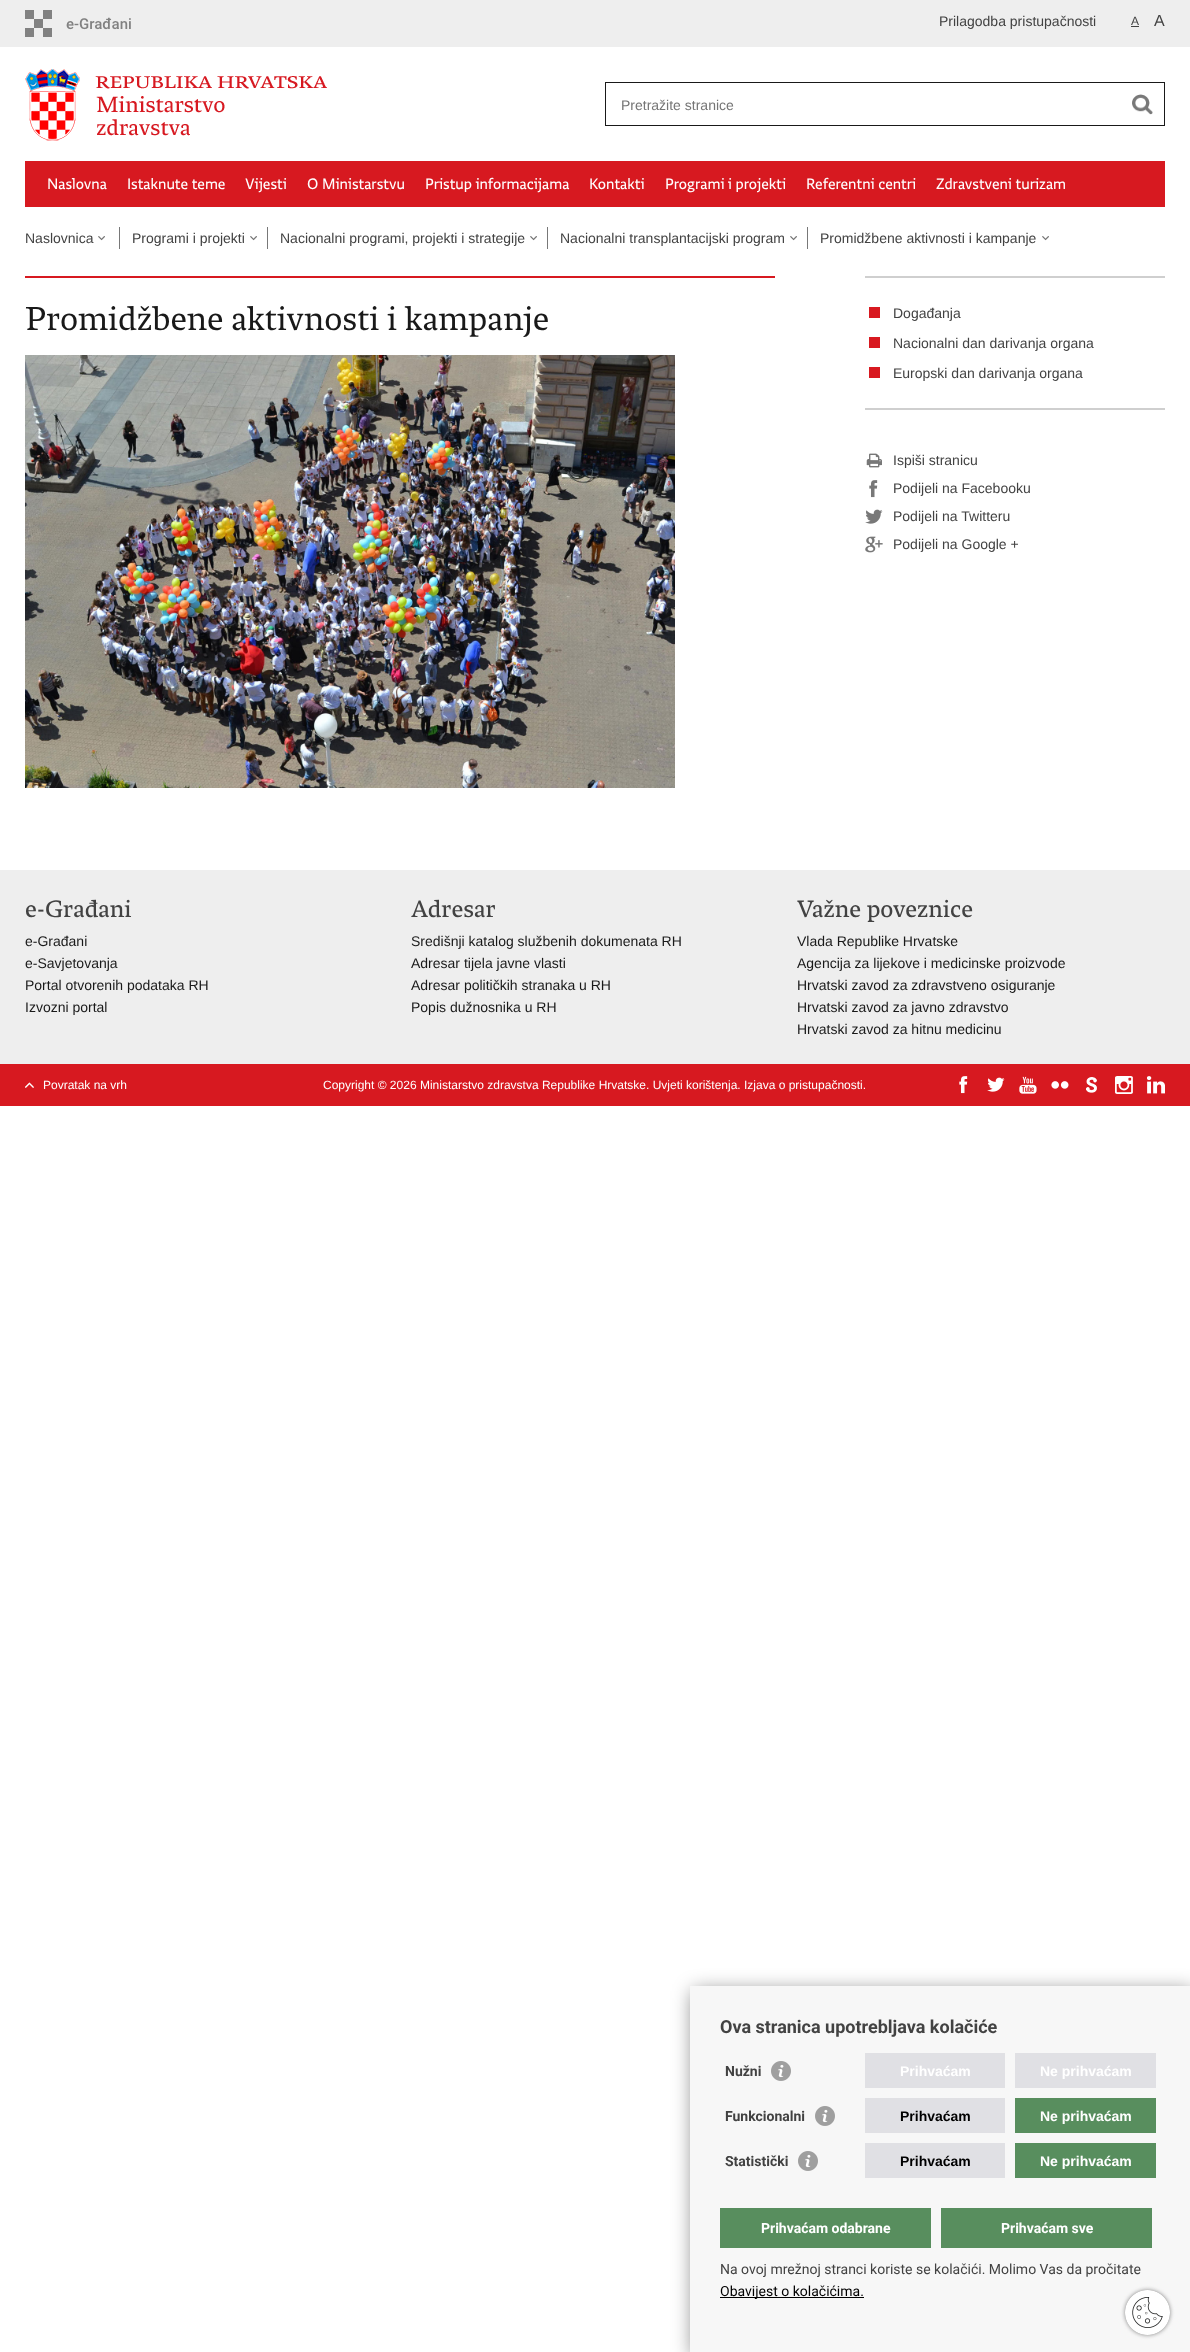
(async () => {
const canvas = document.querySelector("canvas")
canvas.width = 1190
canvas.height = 2352
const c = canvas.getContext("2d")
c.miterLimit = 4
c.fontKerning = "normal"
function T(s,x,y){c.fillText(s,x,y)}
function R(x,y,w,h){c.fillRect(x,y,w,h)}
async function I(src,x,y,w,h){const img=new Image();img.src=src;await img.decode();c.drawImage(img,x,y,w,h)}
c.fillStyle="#fff"
R(0,0,1190,2352)
c.fillStyle="#eee"
R(0,0,1190,47)
await I("1.png",25,10,106,27)
c.font="14px Liberation Sans"
c.fillStyle="#424242"
T("Prilagodba pristupačnosti",939,26)
c.font="12px Liberation Sans"
T("A",1131,25)
R(1131,26,8,1)
c.font="16px Liberation Sans"
T("A",1154,26)
await I("2.png",25,69,302,72)
c.strokeStyle="#191919"
c.strokeRect(605.5,82.5,559,43)
c.font="14px Liberation Sans"
c.fillStyle="#757575"
T("Pretražite stranice",621,110)
await I("3.png",1132,94,21,21)
c.fillStyle="#d71920"
R(25,161,1140,46)
c.font="16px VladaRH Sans"
c.fillStyle="#fff"
T("Naslovna",47,189)
T("Istaknute teme",127,189)
T("Vijesti",245,189)
T("O Ministarstvu",307,189)
T("Pristup informacijama",425,189)
T("Kontakti",589,189)
T("Programi i projekti",665,189)
T("Referentni centri",806,189)
T("Zdravstveni turizam",936,189)
c.font="14px Liberation Sans"
c.fillStyle="#424242"
T("Naslovnica",25,243)
await I("4.png",98,236,7,5)
c.fillStyle="#787878"
R(119,227,1,22)
c.fillStyle="#424242"
T("Programi i projekti",132,243)
await I("4.png",250,236,7,5)
c.fillStyle="#787878"
R(267,227,1,22)
c.fillStyle="#424242"
T("Nacionalni programi, projekti i strategije",280,243)
await I("4.png",530,236,7,5)
c.fillStyle="#787878"
R(547,227,1,22)
c.fillStyle="#424242"
T("Nacionalni transplantacijski program",560,243)
await I("4.png",790,236,7,5)
c.fillStyle="#787878"
R(807,227,1,22)
c.fillStyle="#424242"
T("Promidžbene aktivnosti i kampanje",820,243)
await I("4.png",1042,236,7,5)
c.fillStyle="#d71920"
R(25,276,750,2)
c.font="35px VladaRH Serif"
c.fillStyle="#191919"
T("Promidžbene aktivnosti i kampanje",25,330)
await I("5.png",25,355,650,433)
c.fillStyle="#cfcfcf"
R(865,276,300,2)
R(865,408,300,2)
c.fillStyle="#d81920"
R(869,307,11,11)
c.font="14px Liberation Sans"
c.fillStyle="#424242"
T("Događanja",893,318)
c.fillStyle="#d81920"
R(869,337,11,11)
c.fillStyle="#424242"
T("Nacionalni dan darivanja organa",893,348)
c.fillStyle="#d81920"
R(869,367,11,11)
c.fillStyle="#424242"
T("Europski dan darivanja organa",893,378)
await I("6.png",866,453,16,15)
T("Ispiši stranicu",893,465)
await I("7.png",869,480,9,18)
T("Podijeli na Facebooku",893,493)
await I("8.png",865,509,18,15)
T("Podijeli na Twitteru",893,521)
await I("9.png",865,536,18,17)
T("Podijeli na Google +",893,549)
c.fillStyle="#eee"
R(0,870,1190,194)
c.font="25px 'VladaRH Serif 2'"
c.fillStyle="#424242"
T("e-Građani",25,917)
c.font="14px Liberation Sans"
c.fillStyle="#191919"
T("e-Građani",25,946)
T("e-Savjetovanja",25,968)
T("Portal otvorenih podataka RH",25,990)
T("Izvozni portal",25,1012)
c.font="25px 'VladaRH Serif 2'"
c.fillStyle="#424242"
T("Adresar",411,917)
c.font="14px Liberation Sans"
c.fillStyle="#191919"
T("Središnji katalog službenih dokumenata RH",411,946)
T("Adresar tijela javne vlasti",411,968)
T("Adresar političkih stranaka u RH",411,990)
T("Popis dužnosnika u RH",411,1012)
c.font="25px 'VladaRH Serif 2'"
c.fillStyle="#424242"
T("Važne poveznice",797,917)
c.font="14px Liberation Sans"
c.fillStyle="#191919"
T("Vlada Republike Hrvatske",797,946)
T("Agencija za lijekove i medicinske proizvode",797,968)
T("Hrvatski zavod za zdravstveno osiguranje",797,990)
T("Hrvatski zavod za javno zdravstvo",797,1012)
T("Hrvatski zavod za hitnu medicinu",797,1034)
c.fillStyle="#d71920"
R(0,1064,1190,42)
await I("10.png",25,1082,9,6)
c.font="12px Liberation Sans"
c.fillStyle="#fff"
T("Povratak na vrh",43,1089)
T("Copyright © 2026 Ministarstvo zdravstva Republike Hrvatske. Uvjeti korištenja. Izjava o pristupačnosti.",323,1089)
await I("11.png",959,1076,9,18)
await I("12.png",987,1077,18,15)
await I("13.png",1019,1076,18,18)
await I("14.png",1051,1081,18,8)
await I("15.png",1086,1077,11,16)
await I("16.png",1115,1076,18,18)
await I("17.png",1147,1076,18,18)
c.fillStyle="#00000080"
c.filter="blur(10px)"
c.beginPath()
c.rect(693,1991,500,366)
c.fill()
c.filter="none"
c.fillStyle="#f7f7f7"
R(690,1986,500,366)
c.font="bold 18px Roboto"
c.fillStyle="#424242"
T("Ova stranica upotrebljava kolačiće",720,2033)
c.font="bold 14px Roboto"
T("Nužni",725,2076)
await I("18.png",771,2061,20,20)
c.fillStyle="#e0e0e4"
R(865,2053,140,35)
c.font="bold 14px Liberation Sans"
c.fillStyle="#fff"
T("Prihvaćam",900,2076)
c.fillStyle="#e0e0e4"
R(1015,2053,141,35)
c.fillStyle="#fff"
T("Ne prihvaćam",1040,2076)
c.font="bold 14px Roboto"
c.fillStyle="#424242"
T("Funkcionalni",725,2121)
await I("18.png",815,2106,20,20)
c.fillStyle="#e0e0e4"
R(865,2098,140,35)
c.font="bold 14px Liberation Sans"
c.fillStyle="#000"
T("Prihvaćam",900,2121)
c.fillStyle="#588e5e"
R(1015,2098,141,35)
c.fillStyle="#fff"
T("Ne prihvaćam",1040,2121)
c.font="bold 14px Roboto"
c.fillStyle="#424242"
T("Statistički",725,2166)
await I("18.png",798,2151,20,20)
c.fillStyle="#e0e0e4"
R(865,2143,140,35)
c.font="bold 14px Liberation Sans"
c.fillStyle="#000"
T("Prihvaćam",900,2166)
c.fillStyle="#588e5e"
R(1015,2143,141,35)
c.fillStyle="#fff"
T("Ne prihvaćam",1040,2166)
c.fillStyle="#588e5e"
R(720,2208,211,40)
c.font="bold 14px Roboto"
c.fillStyle="#fff"
T("Prihvaćam odabrane",761,2233)
c.fillStyle="#588e5e"
R(941,2208,211,40)
c.fillStyle="#fff"
T("Prihvaćam sve",1001,2233)
c.font="14px Roboto"
c.fillStyle="#424242"
T("Na ovoj mrežnoj stranci koriste se kolačići. Molimo Vas da pročitate",720,2274)
c.fillStyle="#000"
R(720,2297,144,1)
T("Obavijest o kolačićima.",720,2296)
c.fillStyle="#858585"
c.filter="blur(2px)"
c.beginPath()
c.roundRect(1125,2290,45,45,22.5)
c.fill()
c.filter="none"
await I("19.png",1125,2290,45,45)
})()
